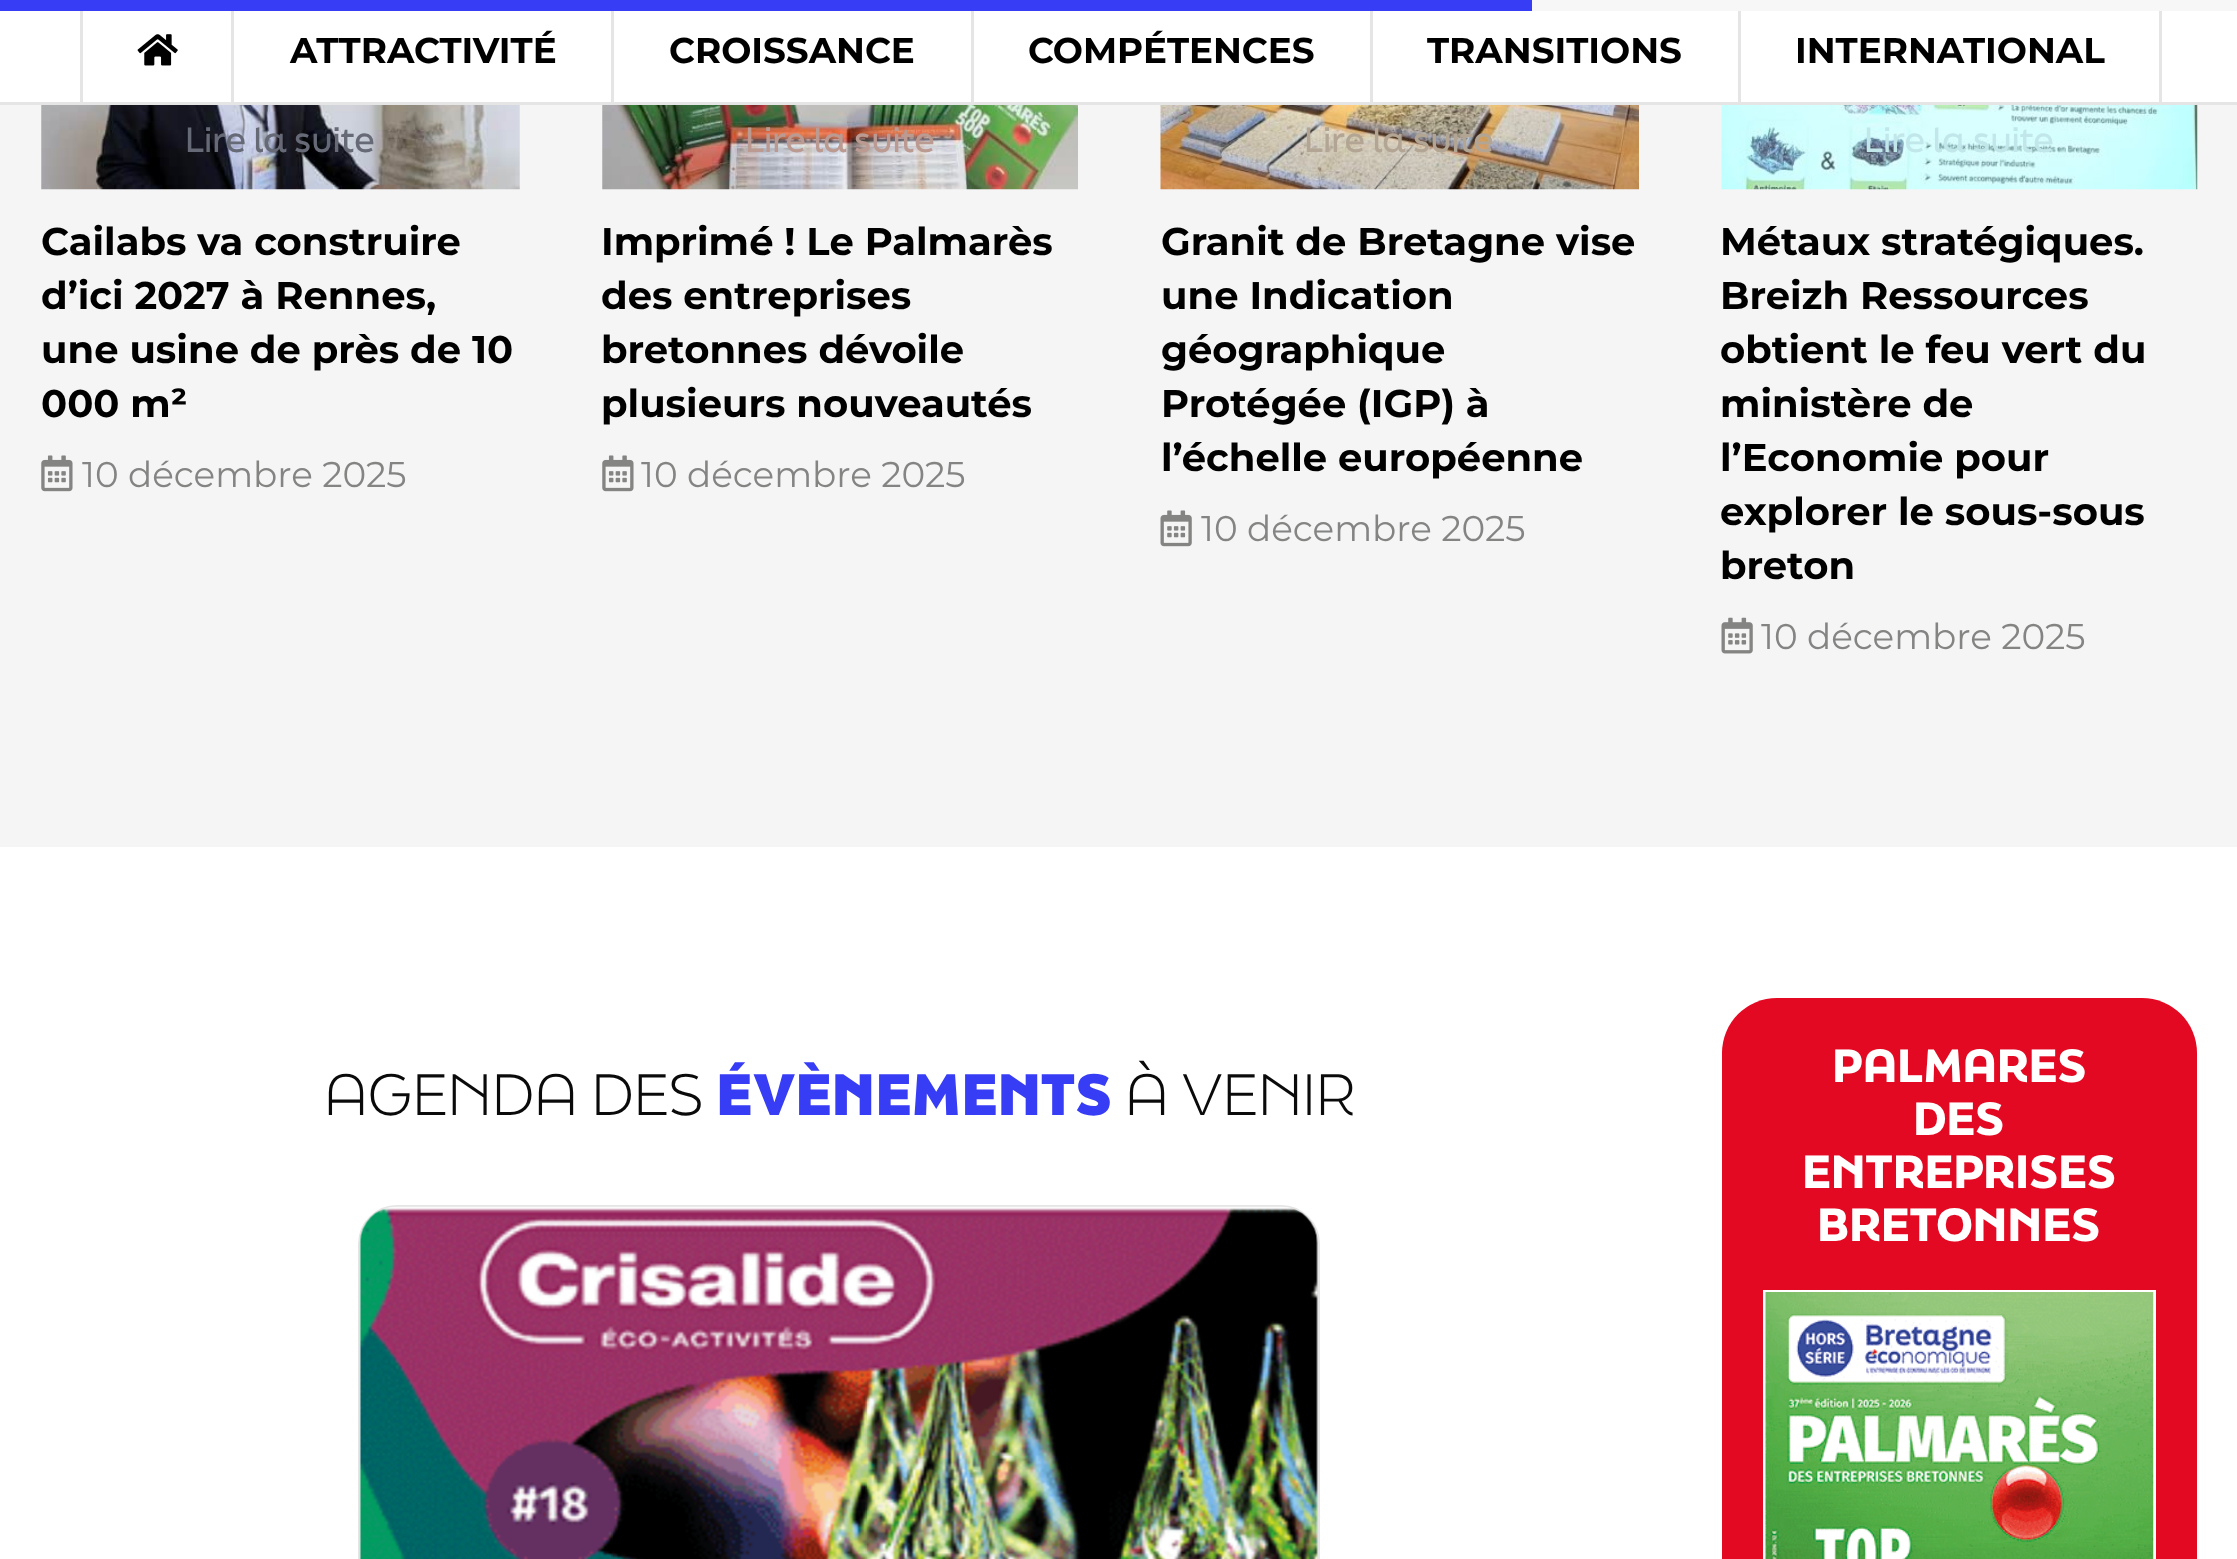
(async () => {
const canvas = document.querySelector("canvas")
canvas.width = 2237
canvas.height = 1559
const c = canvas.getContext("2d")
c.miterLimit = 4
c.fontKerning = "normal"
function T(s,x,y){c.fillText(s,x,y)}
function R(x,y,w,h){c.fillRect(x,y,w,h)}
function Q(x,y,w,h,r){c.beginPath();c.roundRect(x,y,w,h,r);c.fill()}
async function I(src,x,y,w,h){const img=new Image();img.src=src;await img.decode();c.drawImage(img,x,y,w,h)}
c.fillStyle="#fff"
R(0,0,2237,1559)
c.fillStyle="#f7f7f7"
R(1532,0,705,11)
c.fillStyle="#373cf5"
R(0,0,1532,11)
c.fillStyle="#e5e5e5"
R(0,102,2237,3)
R(80,11,3,91)
await I("1.png",137,34,41,32)
R(231,11,3,91)
c.font="bold 35.75px Montserrat"
c.fillStyle="#000"
T("ATTRACTIVITÉ",290,63)
c.fillStyle="#e5e5e5"
R(611,11,3,91)
c.fillStyle="#000"
T("CROISSANCE",669,63)
c.fillStyle="#e5e5e5"
R(971,11,3,91)
c.fillStyle="#000"
T("COMPÉTENCES",1028,63)
c.fillStyle="#e5e5e5"
R(1370,11,3,91)
c.fillStyle="#000"
T("TRANSITIONS",1427,63)
c.fillStyle="#e5e5e5"
R(2159,11,3,91)
R(1738,11,3,91)
c.fillStyle="#000"
T("INTERNATIONAL",1795,63)
c.fillStyle="#f5f5f6"
R(0,105,2237,742)
await I("2.png",41,105,479,85)
c.font="500 33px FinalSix"
c.fillStyle="#666976"
T("Lire la suite",185,152)
c.font="bold 38.5px Montserrat"
c.fillStyle="#000"
T("Cailabs va construire",41,255)
T("d’ici 2027 à Rennes,",41,309)
T("une usine de près de 10",41,363)
T("000 m²",41,417)
await I("3.png",41,455,32,37)
c.font="35.75px Montserrat"
c.fillStyle="#848583"
T("10 décembre 2025",82,487)
await I("4.png",602,105,476,85)
c.font="500 33px FinalSix"
c.fillStyle="#bb9a92"
T("Lire la suite",745,152)
c.font="bold 38.5px Montserrat"
c.fillStyle="#000"
T("Imprimé ! Le Palmarès",601,255)
T("des entreprises",601,309)
T("bretonnes dévoile",601,363)
T("plusieurs nouveautés",601,417)
await I("3.png",602,455,32,37)
c.font="35.75px Montserrat"
c.fillStyle="#848583"
T("10 décembre 2025",641,487)
await I("5.png",1160,105,479,85)
c.font="500 33px FinalSix"
c.fillStyle="#b3a593"
T("Lire la suite",1304,152)
c.font="bold 38.5px Montserrat"
c.fillStyle="#000"
T("Granit de Bretagne vise",1161,255)
T("une Indication",1161,309)
T("géographique",1161,363)
T("Protégée (IGP) à",1161,417)
T("l’échelle européenne",1161,471)
await I("6.png",1160,510,32,37)
c.font="35.75px Montserrat"
c.fillStyle="#848583"
T("10 décembre 2025",1201,541)
await I("7.png",1721,105,477,85)
c.font="500 33px FinalSix"
c.fillStyle="#c2e7ea"
T("Lire la suite",1864,152)
c.font="bold 38.5px Montserrat"
c.fillStyle="#000"
T("Métaux stratégiques.",1720,255)
T("Breizh Ressources",1720,309)
T("obtient le feu vert du",1720,363)
T("ministère de",1720,417)
T("l’Economie pour",1720,471)
T("explorer le sous-sous",1720,525)
T("breton",1720,579)
await I("8.png",1721,617,32,37)
c.font="35.75px Montserrat"
c.fillStyle="#848583"
T("10 décembre 2025",1761,649)
c.font="300 55px FinalSix"
c.fillStyle="#0a0a0a"
T("AGENDA DES",324,1115)
c.font="900 55px FinalSix"
c.fillStyle="#373cf5"
T("ÉVÈNEMENTS",716,1115)
c.font="300 55px FinalSix"
c.fillStyle="#0a0a0a"
T("À VENIR",1125,1115)
c.beginPath()
c.roundRect(359.5,1206.5,959,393,37.5)
c.strokeStyle="#e5e5e5"
c.lineWidth=3
c.stroke()
await I("9.png",359,1206,959,353)
c.fillStyle="#e30922"
Q(1722,998,475,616,55)
c.font="900 44px 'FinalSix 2'"
c.fillStyle="#fff"
T("PALMARES",1832,1082)
T("DES",1913,1135)
T("ENTREPRISES",1802,1188)
T("BRETONNES",1817,1241)
c.strokeStyle="#fff"
c.strokeRect(1764.5,1291.5,390,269)
await I("10.png",1765,1292,389,267)
})()
